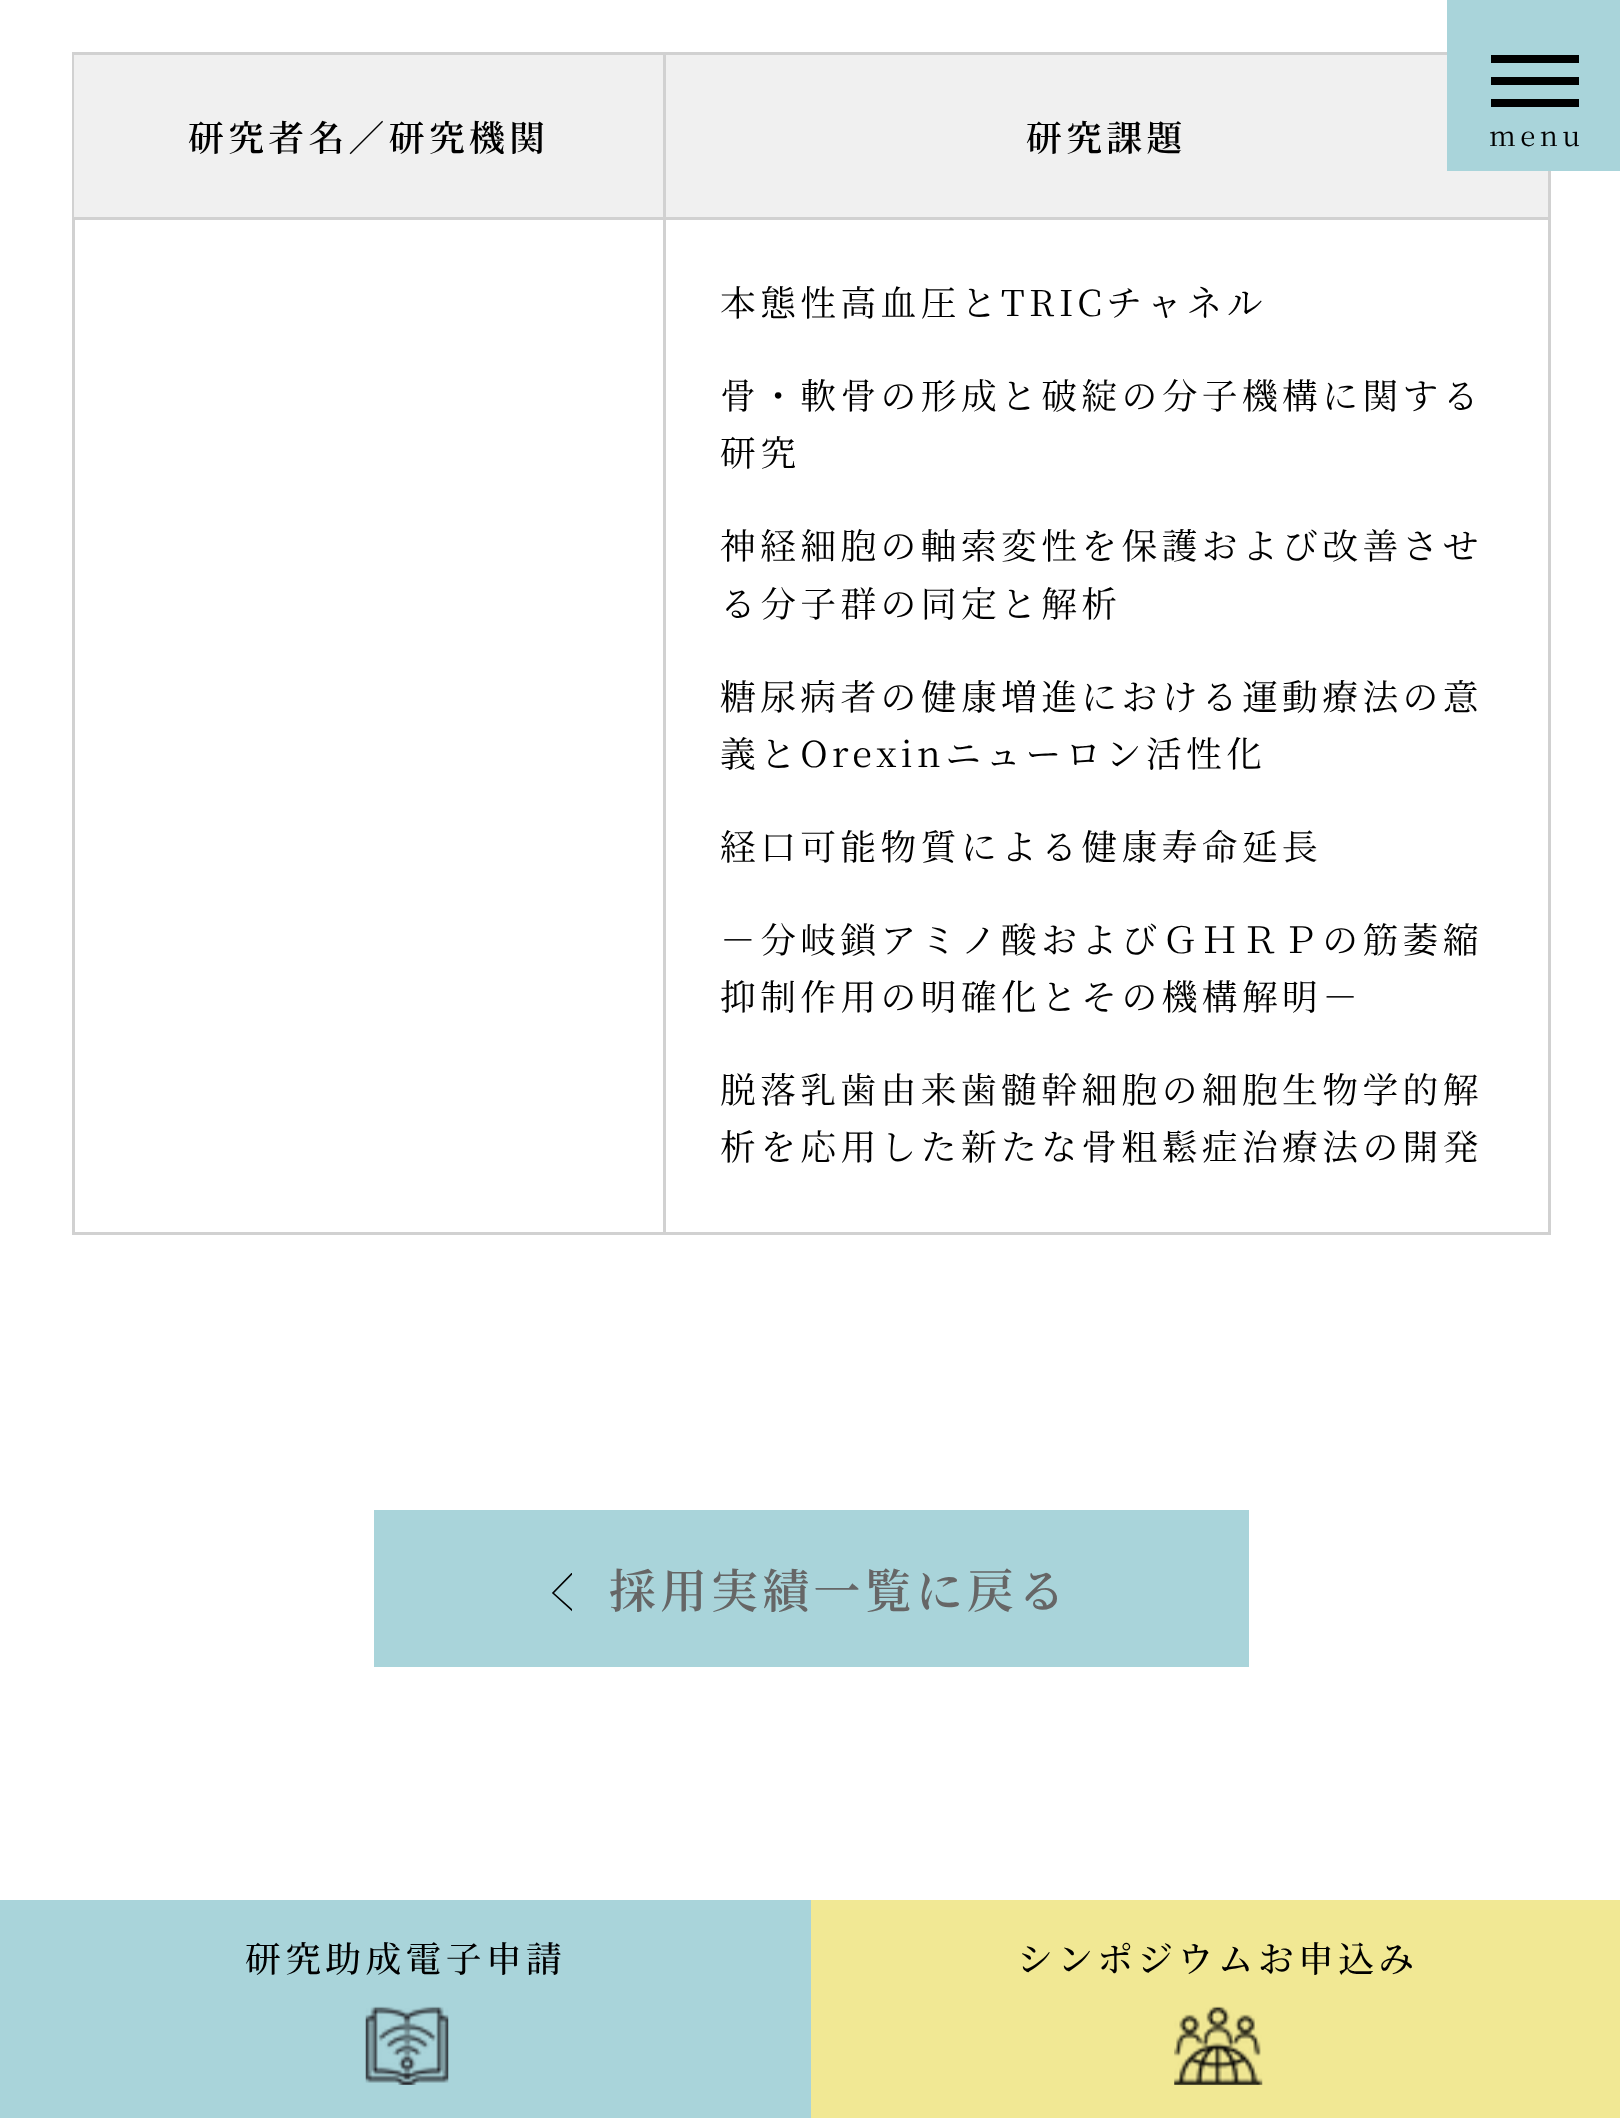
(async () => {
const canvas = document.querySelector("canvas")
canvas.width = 1620
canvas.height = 2118
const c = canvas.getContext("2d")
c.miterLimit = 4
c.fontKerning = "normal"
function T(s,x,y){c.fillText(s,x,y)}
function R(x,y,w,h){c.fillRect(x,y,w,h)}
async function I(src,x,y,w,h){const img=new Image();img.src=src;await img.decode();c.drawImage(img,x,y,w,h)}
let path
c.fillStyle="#fff"
R(0,0,1620,2118)
c.fillStyle="#d1d1d1"
R(72,52,1375,3)
R(72,52,3,1183)
c.fillStyle="#f0f0f0"
R(74,55,1474,162)
c.fillStyle="#d1d1d1"
R(663,55,3,1180)
R(74,217,592,3)
c.letterSpacing="4.4px"
c.font="600 35.75px Noto Serif JP"
c.fillStyle="#000"
T("研究者名／研究機関",188,151)
c.fillStyle="#d1d1d1"
R(1548,171,3,1064)
R(666,217,885,3)
c.fillStyle="#000"
T("研究課題",1026,151)
c.font="35.75px Noto Serif JP"
T("本態性高血圧とTRICチャネル",720,316)
T("骨・軟骨の形成と破綻の分子機構に関する",720,409)
T("研究",720,466)
T("神経細胞の軸索変性を保護および改善させ",720,559)
T("る分子群の同定と解析",720,617)
T("糖尿病者の健康増進における運動療法の意",720,710)
T("義とOrexinニューロン活性化",720,767)
T("経口可能物質による健康寿命延長",720,860)
T("－分岐鎖アミノ酸およびＧＨＲＰの筋萎縮",720,953)
T("抑制作用の明確化とその機構解明－",720,1010)
T("脱落乳歯由来歯髄幹細胞の細胞生物学的解",720,1103)
T("析を応用した新たな骨粗鬆症治療法の開発",720,1160)
c.fillStyle="#d1d1d1"
R(74,1232,1477,3)
c.fillStyle="#a9d4da"
R(374,1510,875,157)
c.save()
c.beginPath()
c.rect(550,1573,22,39)
c.clip()
path = new Path2D("M572.5 1573l-19.5 20l19.5 17.5")
c.strokeStyle="#000"
c.lineWidth=1.6
c.lineCap="square"
c.stroke(path)
c.restore()
c.font="600 46.75px Noto Serif JP"
c.fillStyle="#666"
T("採用実績一覧に戻る",609,1608)
c.fillStyle="#a9d4da"
R(1447,0,173,171)
c.fillStyle="#000"
R(1491,55,88,8)
R(1491,77,88,8)
R(1491,99,88,8)
c.font="27.5px Noto Serif JP"
T("menu",1489,146)
c.fillStyle="#a9d4da"
R(0,1900,811,218)
c.font="500 35.75px Noto Serif JP"
c.fillStyle="#000"
T("研究助成電子申請",245,1972)
await I("1.png",365,2006,84,79)
c.fillStyle="#f1e894"
R(811,1900,809,218)
c.fillStyle="#000"
T("シンポジウムお申込み",1017,1972)
await I("2.png",1174,2006,89,79)
})()
